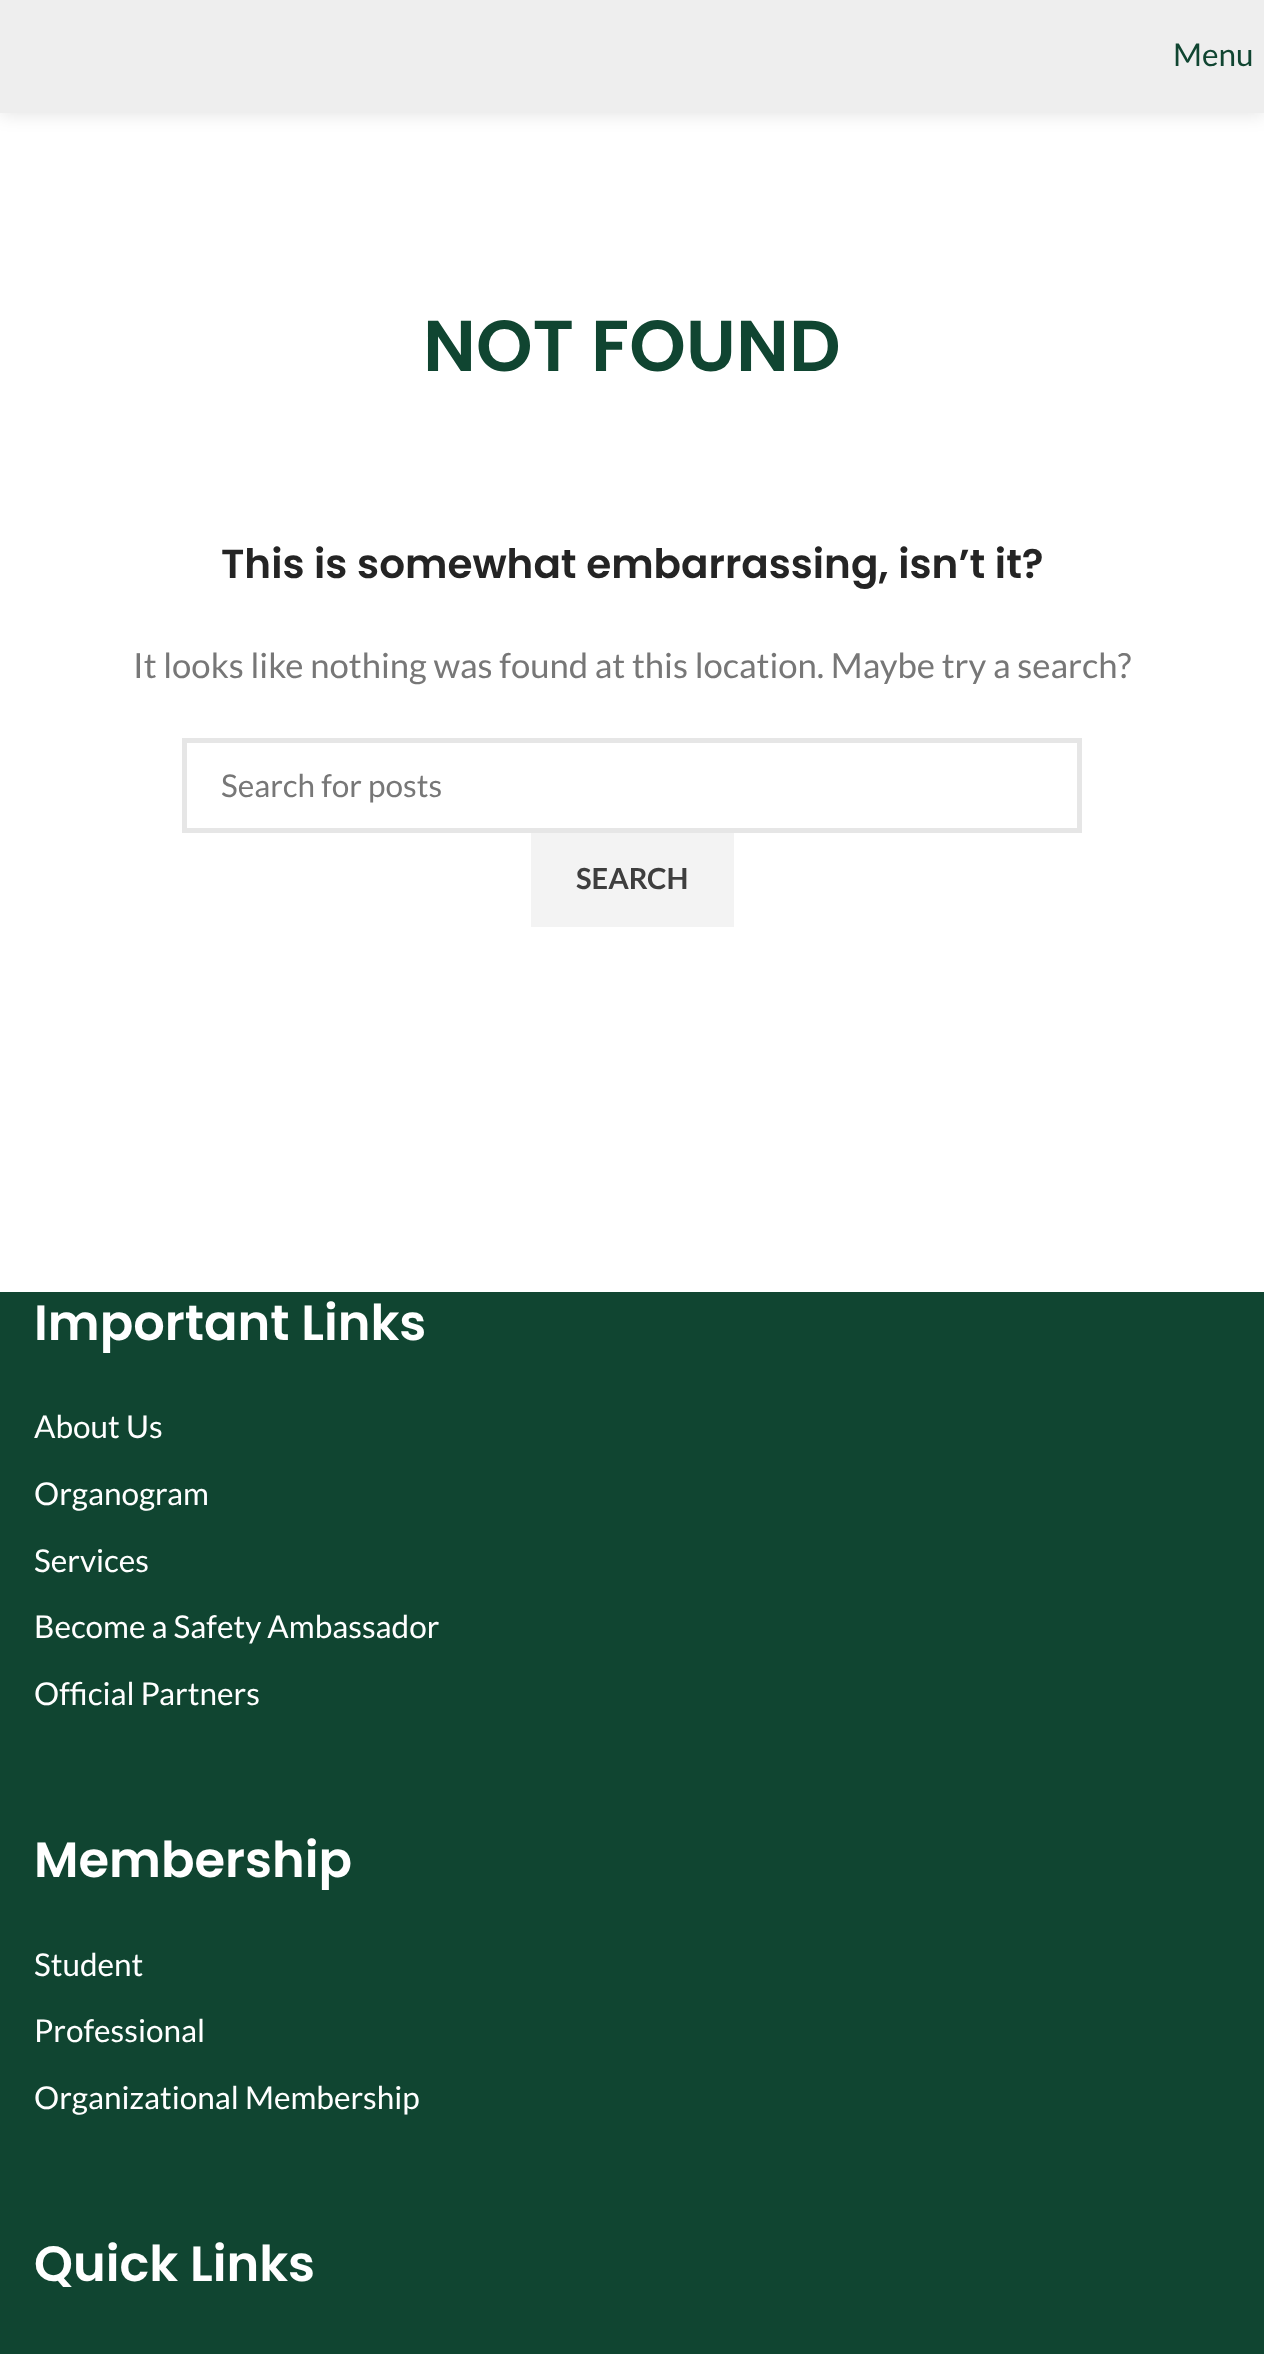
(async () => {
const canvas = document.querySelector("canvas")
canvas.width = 1264
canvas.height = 2354
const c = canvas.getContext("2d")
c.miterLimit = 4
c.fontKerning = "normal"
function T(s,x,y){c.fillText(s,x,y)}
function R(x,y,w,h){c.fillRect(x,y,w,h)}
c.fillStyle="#fff"
R(0,0,1264,2354)
c.fillStyle="#0000001a"
c.filter="blur(9px)"
c.beginPath()
c.rect(0,2,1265,113)
c.fill()
c.filter="none"
c.fillStyle="#eee"
R(0,0,1264,113)
c.font="31.5px Lato"
c.fillStyle="#104531"
T("Menu",1173,66)
c.font="600 72px Poppins"
T("NOT FOUND",423,371)
c.font="600 40.5px Poppins"
c.fillStyle="#242424"
T("This is somewhat embarrassing, isn’t it?",221,578)
c.font="34.65px Lato"
c.fillStyle="#777"
T("It looks like nothing was found at this location. Maybe try a search?",133,678)
c.strokeStyle="#e6e6e6"
c.lineWidth=5
c.strokeRect(184.5,740.5,895,90)
c.font="31.5px Lato"
T("Search for posts",221,797)
c.fillStyle="#f3f3f3"
R(531,833,203,94)
c.font="bold 29px Lato"
c.fillStyle="#3e3e3e"
T("SEARCH",576,889)
c.fillStyle="#104531"
R(0,1292,1264,1062)
c.font="600 49.5px Poppins"
c.fillStyle="#fff"
T("Important Links",34,1340)
c.font="31.5px Lato"
T("About Us",34,1438)
T("Organogram",34,1505)
T("Services",34,1572)
T("Become a Safety Ambassador",34,1638)
T("Official Partners",34,1705)
c.font="600 49.5px Poppins"
T("Membership",34,1877)
c.font="31.5px Lato"
T("Student",34,1976)
T("Professional",34,2042)
T("Organizational Membership",34,2109)
c.font="600 49.5px Poppins"
T("Quick Links",34,2281)
})()
